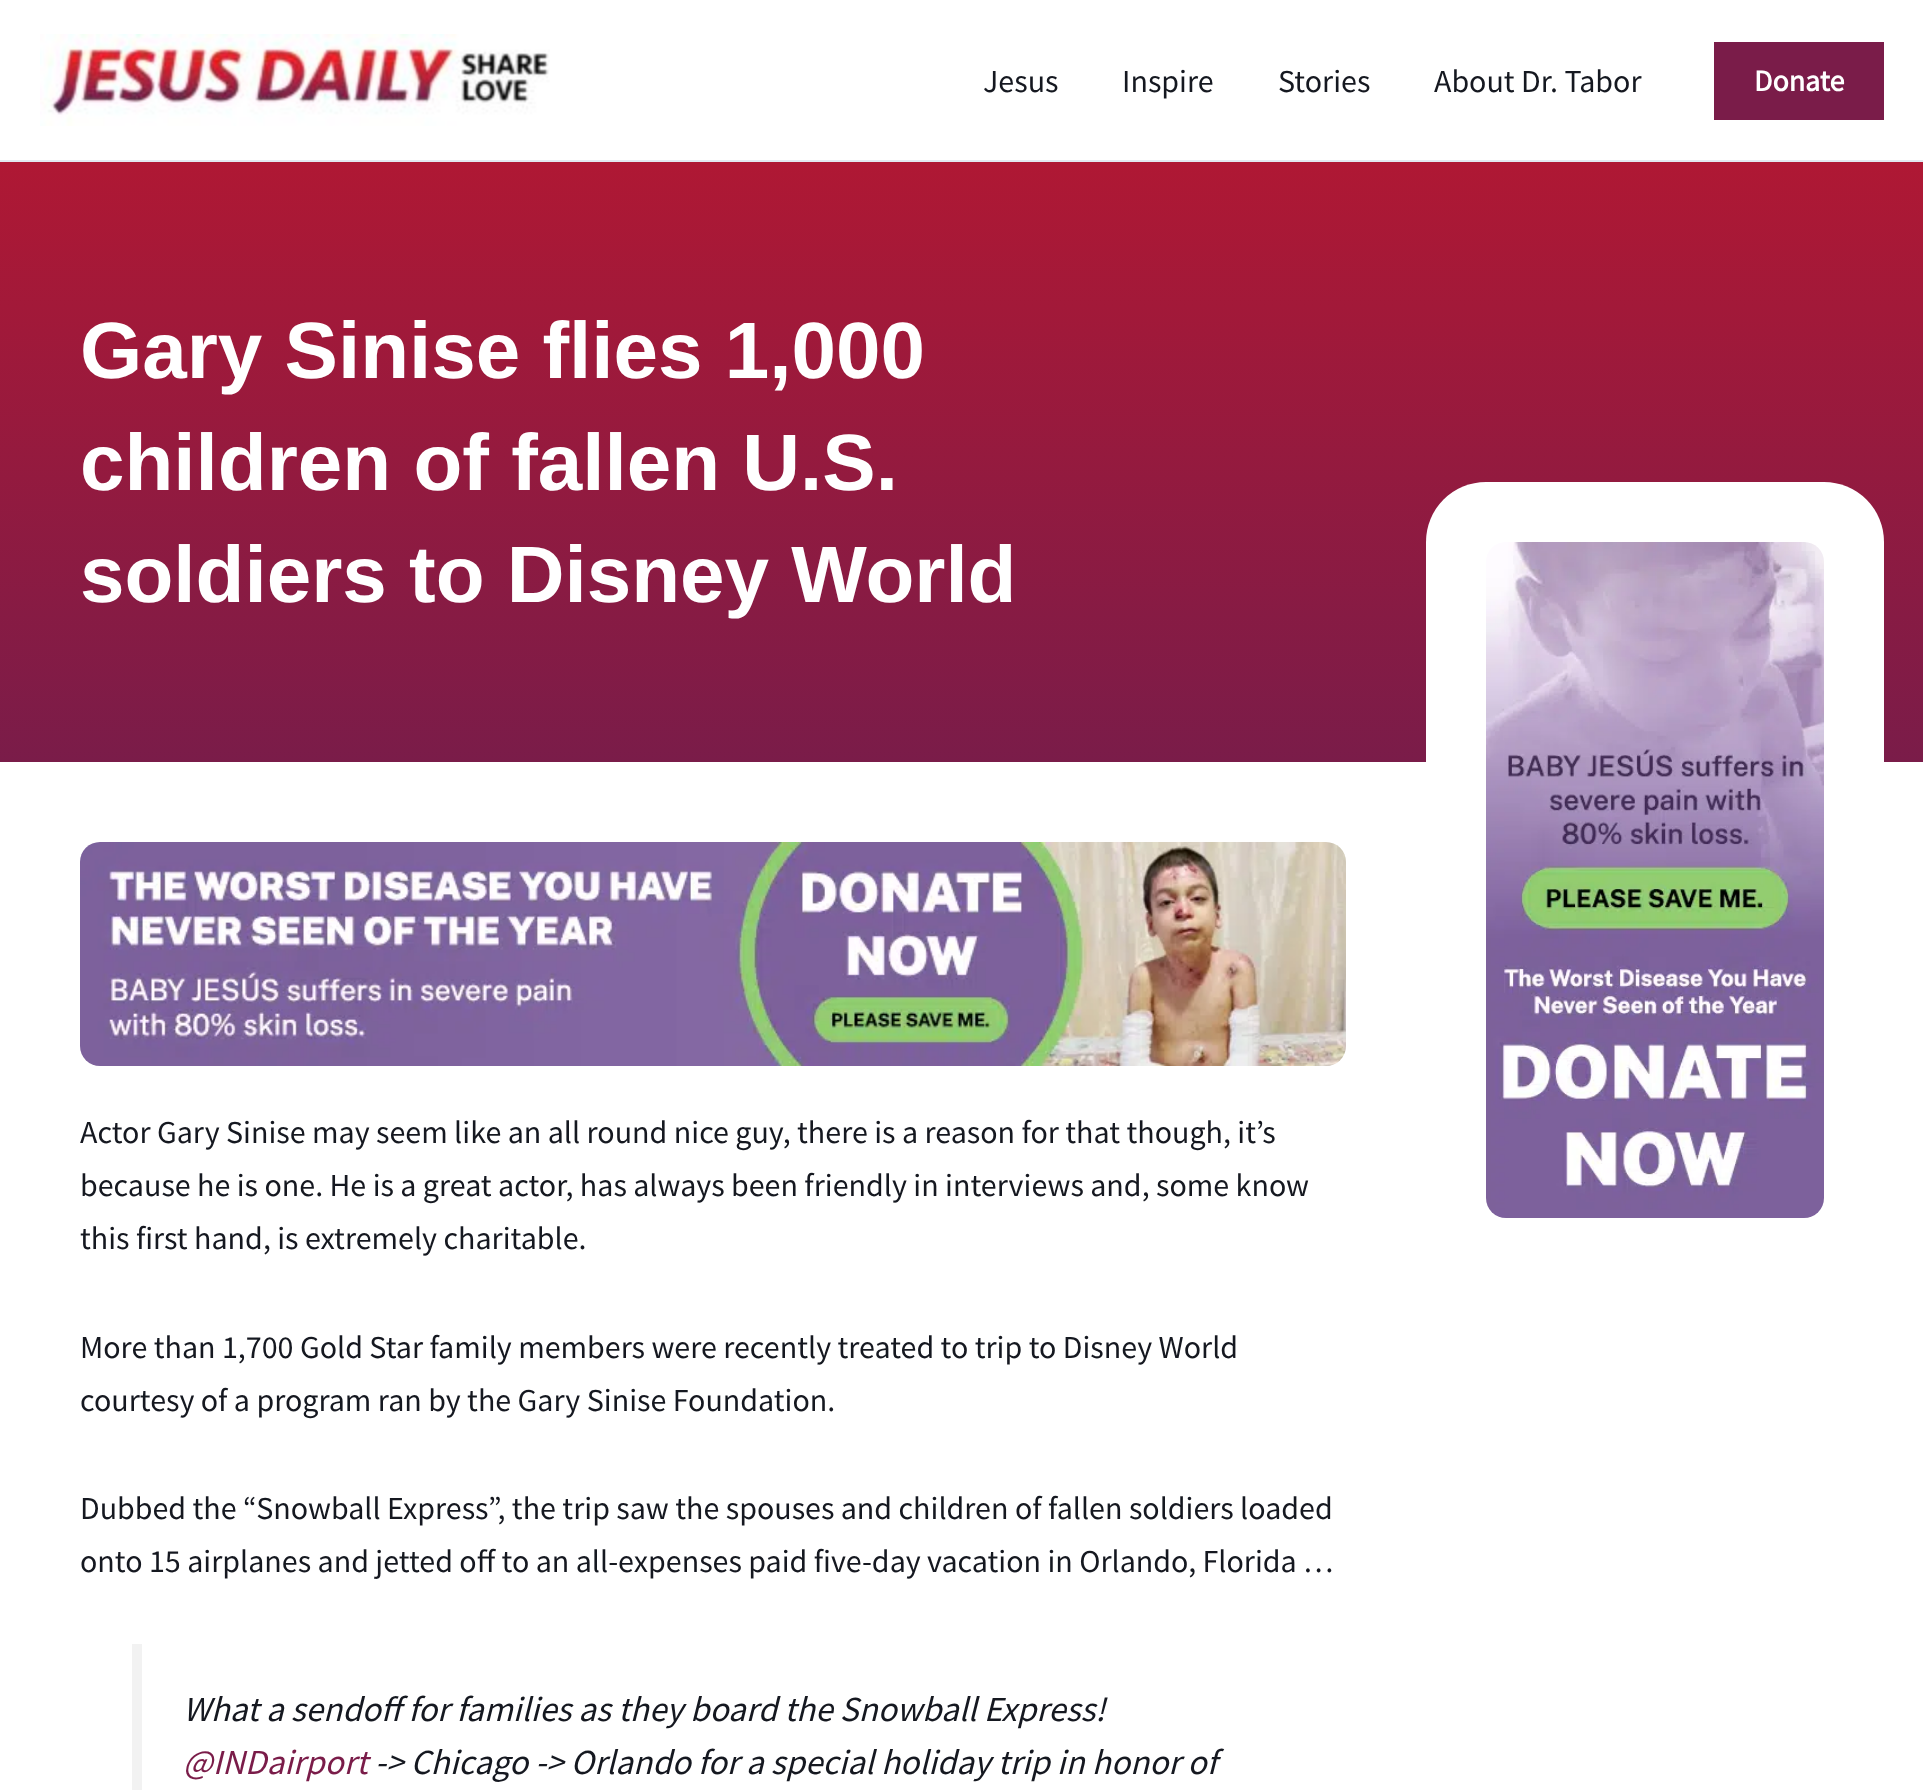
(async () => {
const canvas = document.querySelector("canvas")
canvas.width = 1923
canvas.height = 1790
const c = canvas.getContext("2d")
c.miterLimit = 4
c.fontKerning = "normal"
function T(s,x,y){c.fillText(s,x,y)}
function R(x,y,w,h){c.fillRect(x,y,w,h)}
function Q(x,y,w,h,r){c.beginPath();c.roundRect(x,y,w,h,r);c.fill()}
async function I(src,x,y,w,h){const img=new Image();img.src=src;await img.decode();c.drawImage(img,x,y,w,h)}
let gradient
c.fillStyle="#fff"
R(0,0,1923,1790)
c.fillStyle="#e2e8f0"
R(0,160,1923,2)
await I("1.png",40,34,510,92)
c.font="32px Source Sans Pro"
c.fillStyle="#151820"
T("Jesus",983,92)
T("Inspire",1122,92)
T("Stories",1278,92)
T("About Dr. Tabor",1434,92)
c.fillStyle="#7a1c49"
R(1714,42,170,78)
c.font="bold 30px Source Sans Pro"
c.fillStyle="#fff"
T("Donate",1754,91)
gradient = c.createLinearGradient(962,762,962,162)
gradient.addColorStop(0,"#7a1c49")
gradient.addColorStop(1,"#af1834")
c.fillStyle = gradient
R(0,162,1923,600)
c.font="bold 80px Liberation Sans"
c.fillStyle="#fff"
T("Gary Sinise flies 1,000",80,378)
T("children of fallen U.S.",80,490)
T("soldiers to Disney World",80,602)
Q(1426,482,458,816,60)
await I("2.png",1486,542,338,676)
await I("3.png",80,842,1266,224)
c.font="32px Source Sans Pro"
c.fillStyle="#151820"
T("Actor Gary Sinise may seem like an all round nice guy, there is a reason for that though, it’s",80,1143)
T("because he is one. He is a great actor, has always been friendly in interviews and, some know",80,1196)
T("this first hand, is extremely charitable.",80,1249)
T("More than 1,700 Gold Star family members were recently treated to trip to Disney World",80,1358)
T("courtesy of a program ran by the Gary Sinise Foundation.",80,1411)
T("Dubbed the “Snowball Express”, the trip saw the spouses and children of fallen soldiers loaded",80,1519)
T("onto 15 airplanes and jetted off to an all-expenses paid five-day vacation in Orlando, Florida …",80,1572)
c.fillStyle="#f2f2f2"
R(132,1644,10,146)
c.font="italic 35.2px Source Sans Pro"
c.fillStyle="#151820"
T("What a sendoff for families as they board the Snowball Express!",183,1721)
c.fillStyle="#7a1c49"
T("@INDairport",183,1774)
c.fillStyle="#151820"
T("-> Chicago -> Orlando for a special holiday trip in honor of",375,1774)
})()
